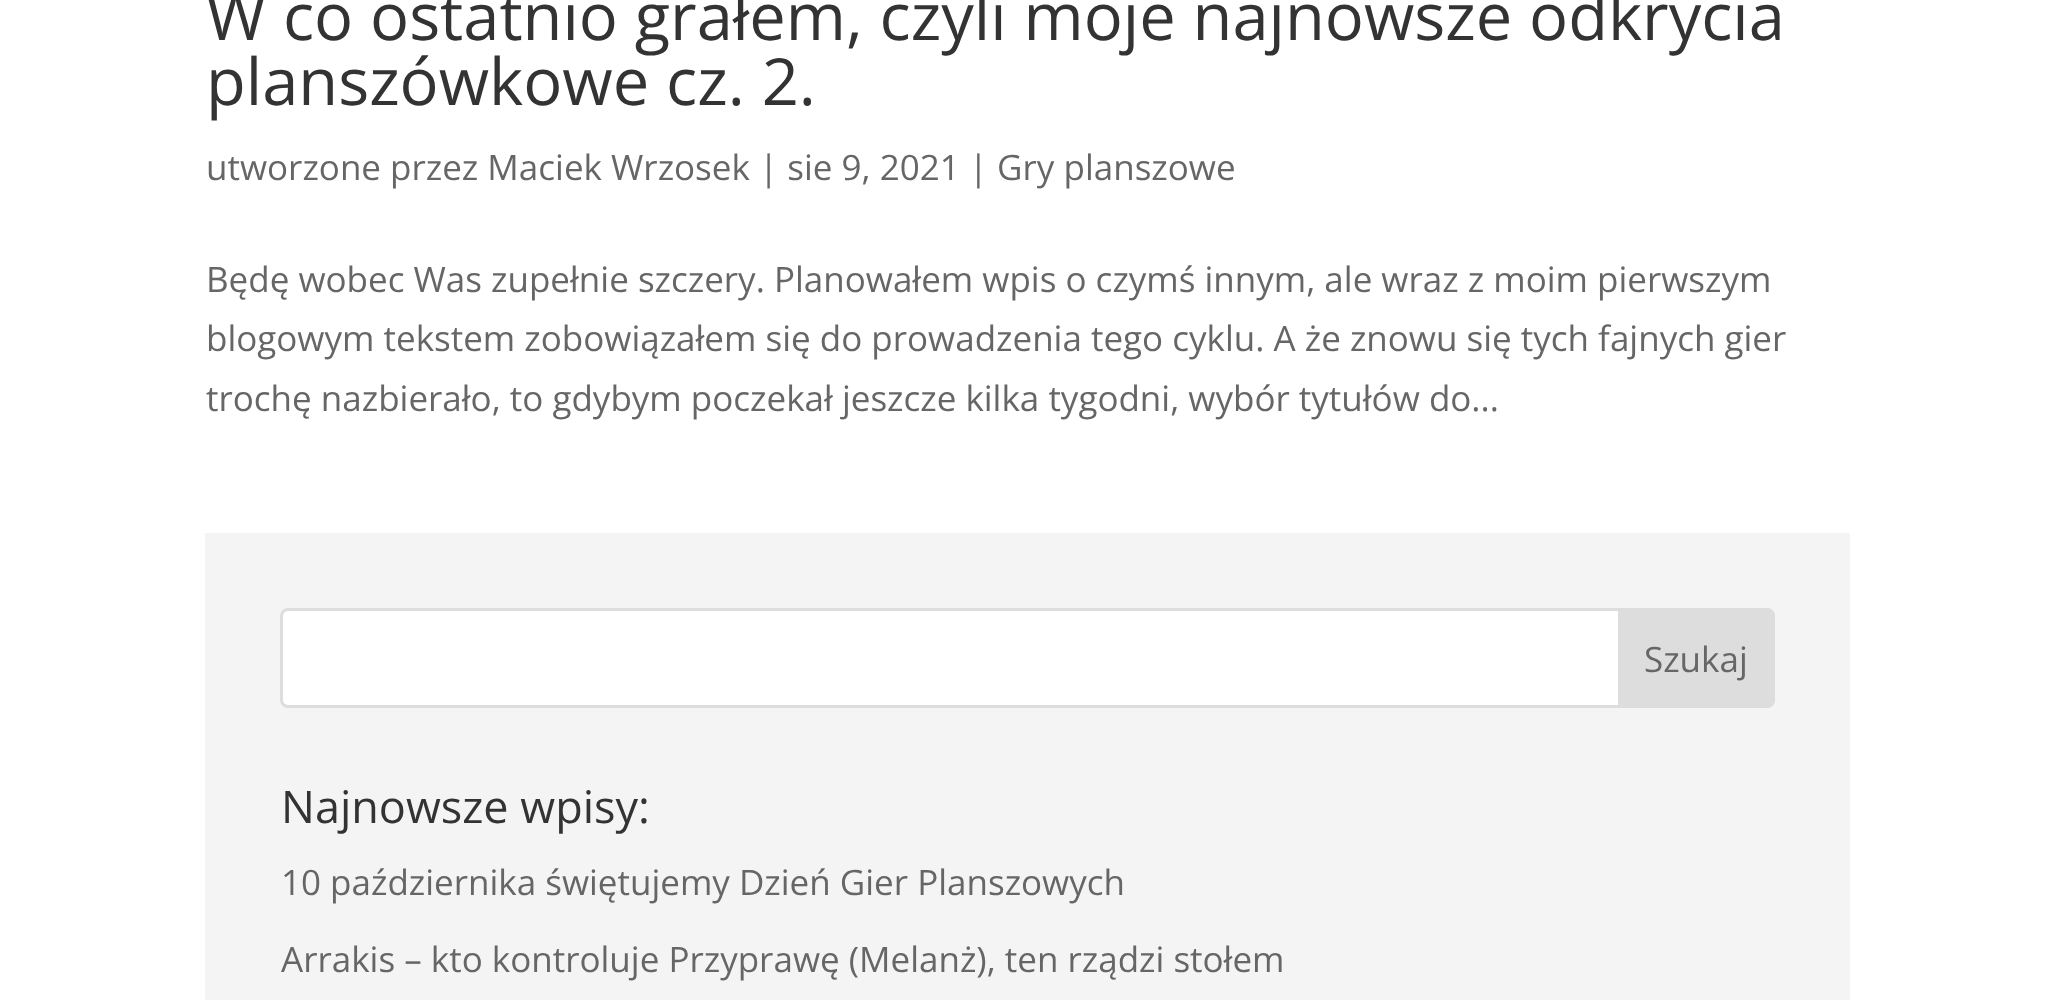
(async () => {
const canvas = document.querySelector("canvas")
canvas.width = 2054
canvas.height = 1000
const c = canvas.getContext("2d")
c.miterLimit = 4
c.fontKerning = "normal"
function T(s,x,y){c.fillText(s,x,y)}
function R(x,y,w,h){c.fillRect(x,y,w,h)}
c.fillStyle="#fff"
R(0,0,2054,1000)
c.font="65px Open Sans"
c.fillStyle="#333"
T("W co ostatnio grałem, czyli moje najnowsze odkrycia",206,40)
T("planszówkowe cz. 2.",206,105)
c.font="35px Open Sans"
c.fillStyle="#666"
T("utworzone przez Maciek Wrzosek | sie 9, 2021 | Gry planszowe",206,180)
T("Będę wobec Was zupełnie szczery. Planowałem wpis o czymś innym, ale wraz z moim pierwszym",206,292)
T("blogowym tekstem zobowiązałem się do prowadzenia tego cyklu. A że znowu się tych fajnych gier",206,351)
T("trochę nazbierało, to gdybym poczekał jeszcze kilka tygodni, wybór tytułów do...",206,411)
c.fillStyle="#f4f4f4"
R(205,533,1645,467)
c.fillStyle="#fff"
c.beginPath()
c.roundRect(281.5,609.5,1492,97,6.5)
c.fill()
c.strokeStyle="#ddd"
c.lineWidth=3
c.stroke()
c.fillStyle="#ddd"
c.beginPath()
c.roundRect(1619.5,609.5,154,97,[0,6.5,6.5,0])
c.fill()
c.stroke()
c.fillStyle="#666"
T("Szukaj",1644,672)
c.font="45px Open Sans"
c.fillStyle="#333"
T("Najnowsze wpisy:",281,823)
c.font="35px Open Sans"
c.fillStyle="#666"
T("10 października świętujemy Dzień Gier Planszowych",281,895)
T("Arrakis – kto kontroluje Przyprawę (Melanż), ten rządzi stołem",281,972)
})()
